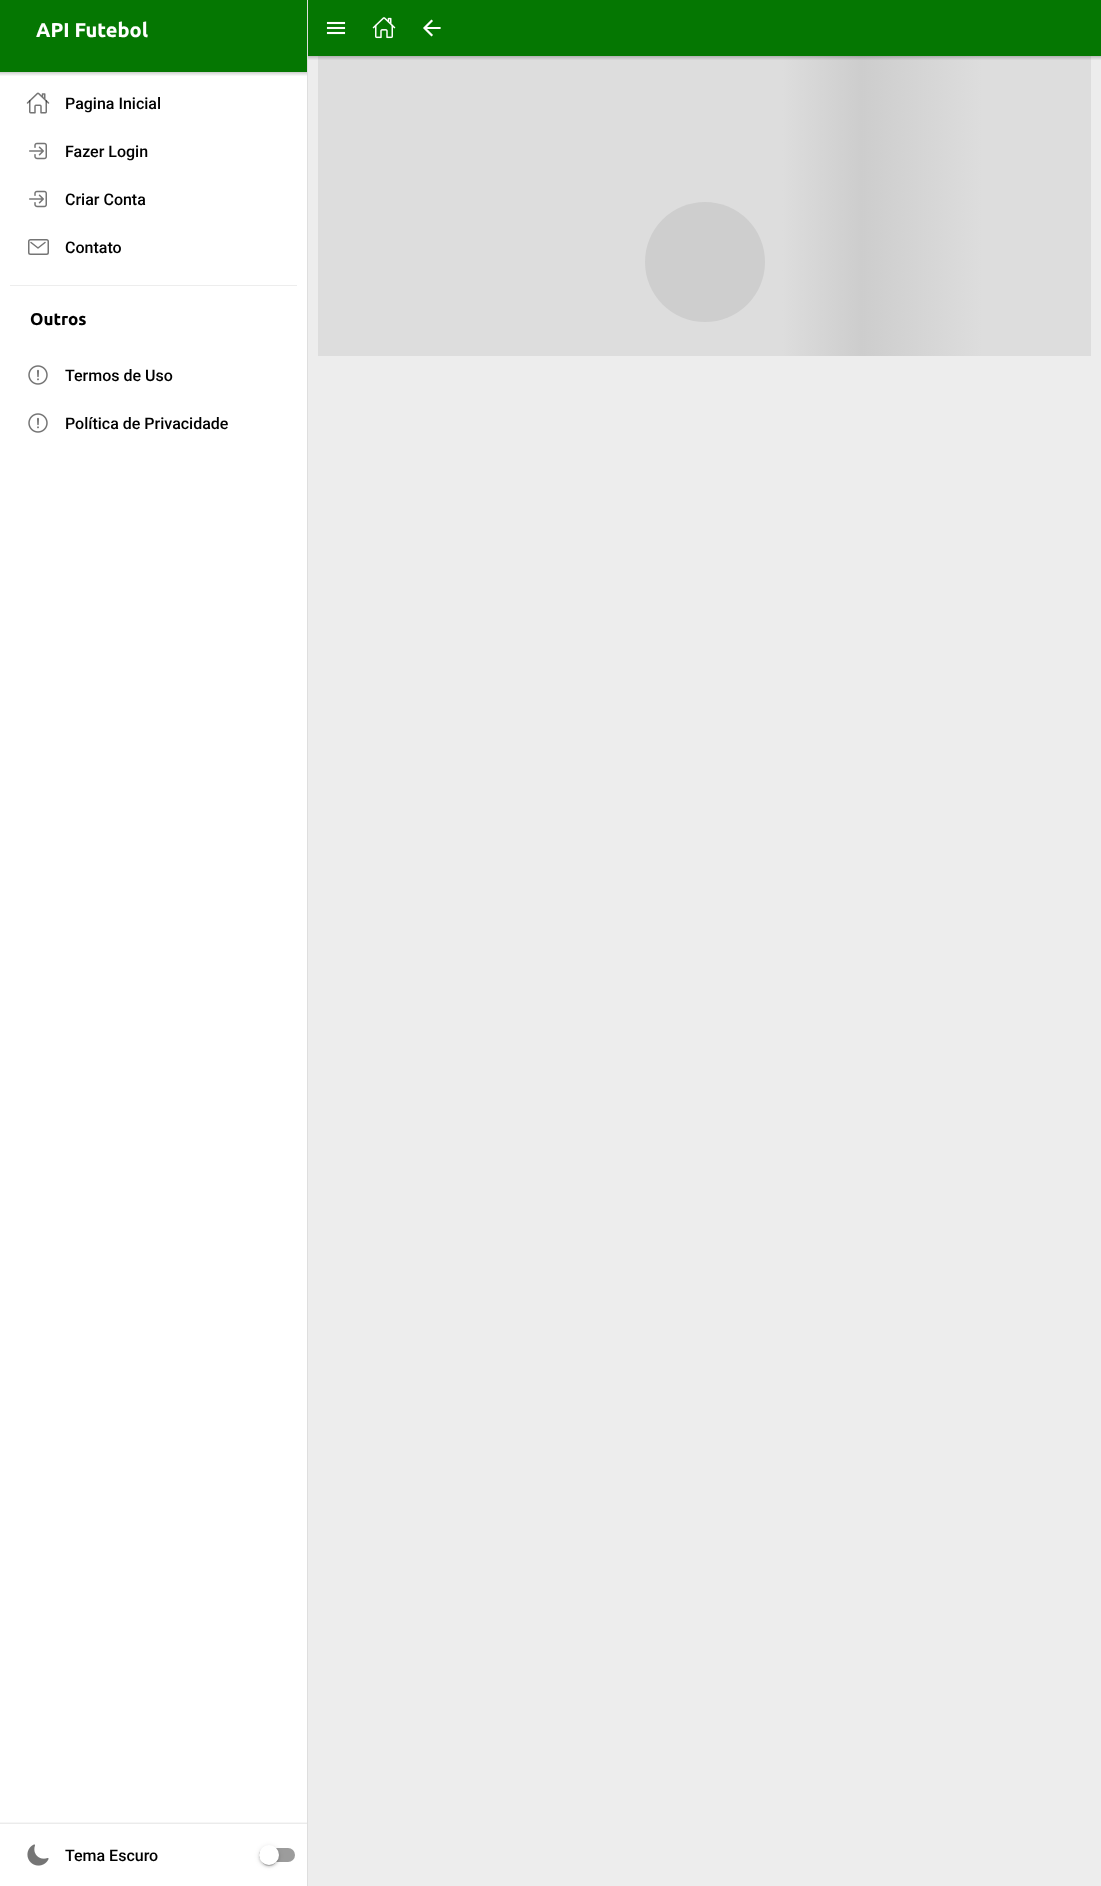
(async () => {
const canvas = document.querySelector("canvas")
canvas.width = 1101
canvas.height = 1886
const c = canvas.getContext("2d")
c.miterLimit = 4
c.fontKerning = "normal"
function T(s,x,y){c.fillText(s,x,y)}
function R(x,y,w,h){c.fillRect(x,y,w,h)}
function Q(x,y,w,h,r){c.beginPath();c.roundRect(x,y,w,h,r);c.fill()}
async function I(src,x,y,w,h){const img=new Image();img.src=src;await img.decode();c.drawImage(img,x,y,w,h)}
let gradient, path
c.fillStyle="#fff"
R(0,0,1101,1886)
c.fillStyle="#dedede"
R(307,0,1,1886)
c.fillStyle="#057702"
R(0,0,307,72)
c.font="bold 20px Ubuntu"
c.fillStyle="#fff"
T("API Futebol",36,37)
await I("1.png",0,72,307,4)
await I("2.png",26,92,24,22)
c.font="500 16px Roboto"
c.fillStyle="#000"
T("Pagina Inicial",65,109)
await I("3.png",29,142,18,18)
T("Fazer Login",65,157)
await I("3.png",29,190,18,18)
T("Criar Conta",65,205)
c.beginPath()
c.roundRect(28.75,239.75,19.5,14.5,1.75)
c.strokeStyle="#757575"
c.lineWidth=1.5
c.stroke()
path = new Path2D("M31 242.5l7 5.5l7-5.5")
c.lineCap="round"
c.lineJoin="round"
c.stroke(path)
T("Contato",65,253)
c.fillStyle="#ededed"
R(10,285,287,1)
c.font="bold 17px Ubuntu"
c.fillStyle="#000"
T("Outros",30,325)
await I("4.png",28,365,20,20)
c.font="500 16px Roboto"
T("Termos de Uso",65,381)
await I("4.png",28,413,20,20)
T("Política de Privacidade",65,429)
await I("5.png",0,1822,307,2)
await I("6.png",27,1844,22,22)
T("Tema Escuro",65,1861)
c.fillStyle="#9c9c9c"
Q(259,1848,36,14,7)
c.fillStyle="#0000001f"
c.filter="blur(2.5px)"
c.beginPath()
c.roundRect(259,1846,20,20,10)
c.fill()
c.filter="none"
c.fillStyle="#00000024"
c.filter="blur(1px)"
c.beginPath()
c.roundRect(259,1847,20,20,10)
c.fill()
c.filter="none"
c.fillStyle="#00000033"
c.filter="blur(0.5px)"
c.beginPath()
c.roundRect(261,1850,16,16,8)
c.fill()
c.filter="none"
c.fillStyle="#fff"
c.beginPath()
c.arc(269,1855,10,0,7)
c.fill()
c.fillStyle="#057702"
R(308,0,793,56)
await I("7.png",326,21,20,14)
await I("8.png",372,17,24,22)
path = new Path2D("M431.5 35l-7-7l7-7m-6 7h14")
c.strokeStyle="#fff"
c.lineWidth=2.2
c.lineCap="square"
c.lineJoin="miter"
c.stroke(path)
c.fillStyle="#ededed"
R(308,56,793,1830)
gradient = c.createLinearGradient(-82,108,718,108)
gradient.addColorStop(.08,"#ddd")
gradient.addColorStop(.18,"#cdcdcd")
gradient.addColorStop(.33,"#ddd")
c.fillStyle = gradient
R(318,56,400,300)
gradient = c.createLinearGradient(718,108,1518,108)
gradient.addColorStop(.08,"#ddd")
gradient.addColorStop(.18,"#cdcdcd")
gradient.addColorStop(.33,"#ddd")
c.fillStyle = gradient
R(718,56,373,300)
await I("9.png",308,56,793,4)
gradient = c.createLinearGradient(245,254,1045,254)
gradient.addColorStop(.08,"#cecece")
gradient.addColorStop(.18,"#c0c0c0")
gradient.addColorStop(.33,"#cecece")
c.fillStyle = gradient
c.beginPath()
c.arc(705,262,60,0,7)
c.fill()
})()
